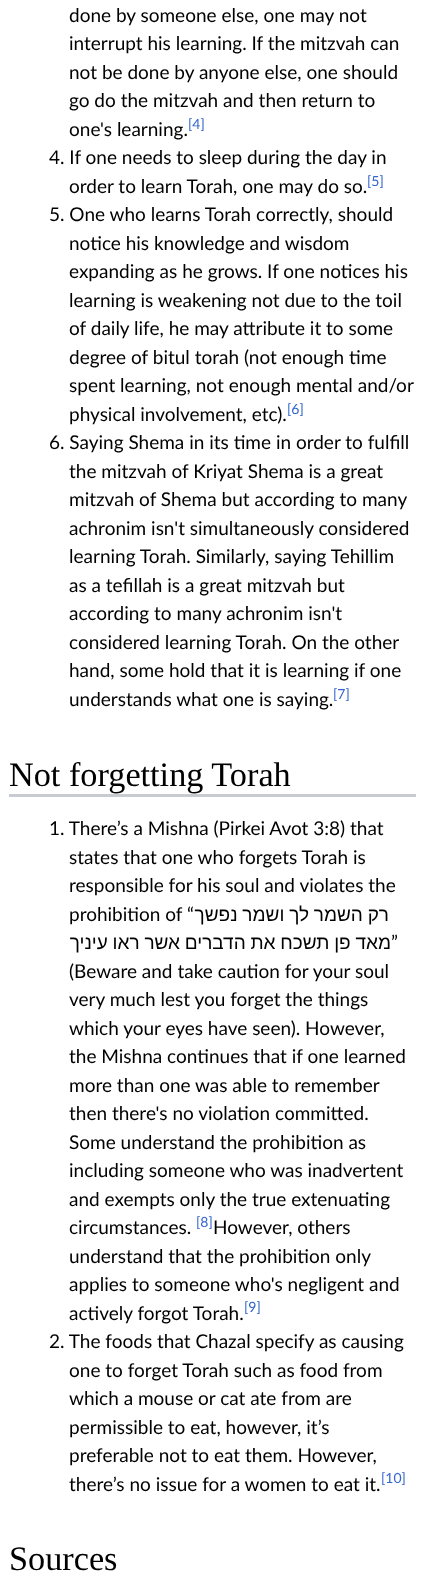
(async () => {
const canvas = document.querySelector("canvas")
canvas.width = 424
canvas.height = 1579
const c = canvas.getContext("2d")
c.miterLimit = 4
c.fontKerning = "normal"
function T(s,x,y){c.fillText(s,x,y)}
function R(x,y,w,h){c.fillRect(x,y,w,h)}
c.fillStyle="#fff"
R(0,0,424,1579)
c.font="19px Lato"
c.fillStyle="#000"
T("done by someone else, one may not",69,22)
T("interrupt his learning. If the mitzvah can",69,50)
T("not be done by anyone else, one should",69,79)
T("go do the mitzvah and then return to",69,107)
T("one's learning.",69,136)
c.font="14px Lato"
c.fillStyle="#36c"
T("[4]",188,129)
c.font="19px Lato"
c.fillStyle="#000"
T("4. If one needs to sleep during the day in",49,164)
T("order to learn Torah, one may do so.",69,193)
c.font="14px Lato"
c.fillStyle="#36c"
T("[5]",367,186)
c.font="19px Lato"
c.fillStyle="#000"
T("5. One who learns Torah correctly, should",49,221)
T("notice his knowledge and wisdom",69,250)
T("expanding as he grows. If one notices his",69,278)
T("learning is weakening not due to the toil",69,307)
T("of daily life, he may attribute it to some",69,335)
T("degree of bitul torah (not enough time",69,364)
T("spent learning, not enough mental and/or",69,392)
T("physical involvement, etc).",69,421)
c.font="14px Lato"
c.fillStyle="#36c"
T("[6]",287,414)
c.font="19px Lato"
c.fillStyle="#000"
T("6. Saying Shema in its time in order to fulfill",49,449)
T("the mitzvah of Kriyat Shema is a great",69,478)
T("mitzvah of Shema but according to many",69,506)
T("achronim isn't simultaneously considered",69,535)
T("learning Torah. Similarly, saying Tehillim",69,563)
T("as a tefillah is a great mitzvah but",69,592)
T("according to many achronim isn't",69,620)
T("considered learning Torah. On the other",69,649)
T("hand, some hold that it is learning if one",69,677)
T("understands what one is saying.",69,706)
c.font="14px Lato"
c.fillStyle="#36c"
T("[7]",333,699)
c.font="34.25px Liberation Serif"
c.fillStyle="#000"
T("Not forgetting Torah",9,786)
c.fillStyle="#c8ccd1"
R(9,794,407,3)
c.font="19px Lato"
c.fillStyle="#000"
T("1. There’s a Mishna (Pirkei Avot 3:8) that",49,835)
T("states that one who forgets Torah is",69,864)
T("responsible for his soul and violates the",69,892)
T("prohibition of “",69,921)
c.wordSpacing="-0.5px"
c.direction="rtl"
c.font="19px Liberation Sans"
T("רק השמר לך ושמר נפשך",389,921)
T("מאד פן תשכח את הדברים אשר ראו עיניך",391,949)
c.wordSpacing="0px"
c.direction="ltr"
c.font="19px Lato"
T("”",391,949)
T("(Beware and take caution for your soul",69,978)
T("very much lest you forget the things",69,1006)
T("which your eyes have seen). However,",69,1035)
T("the Mishna continues that if one learned",69,1063)
T("more than one was able to remember",69,1092)
T("then there's no violation committed.",69,1120)
T("Some understand the prohibition as",69,1149)
T("including someone who was inadvertent",69,1177)
T("and exempts only the true extenuating",69,1206)
T("circumstances.",69,1234)
c.font="14px Lato"
c.fillStyle="#36c"
T("[8]",196,1227)
c.font="19px Lato"
c.fillStyle="#000"
T("However, others",213,1234)
T("understand that the prohibition only",69,1263)
T("applies to someone who's negligent and",69,1291)
T("actively forgot Torah.",69,1320)
c.font="14px Lato"
c.fillStyle="#36c"
T("[9]",244,1312)
c.font="19px Lato"
c.fillStyle="#000"
T("2. The foods that Chazal specify as causing",49,1348)
T("one to forget Torah such as food from",69,1377)
T("which a mouse or cat ate from are",69,1405)
T("permissible to eat, however, it’s",69,1434)
T("preferable not to eat them. However,",69,1462)
T("there’s no issue for a women to eat it.",69,1491)
c.font="14px Lato"
c.fillStyle="#36c"
T("[10]",381,1483)
c.font="34.25px Liberation Serif"
c.fillStyle="#000"
T("Sources",9,1570)
})()
